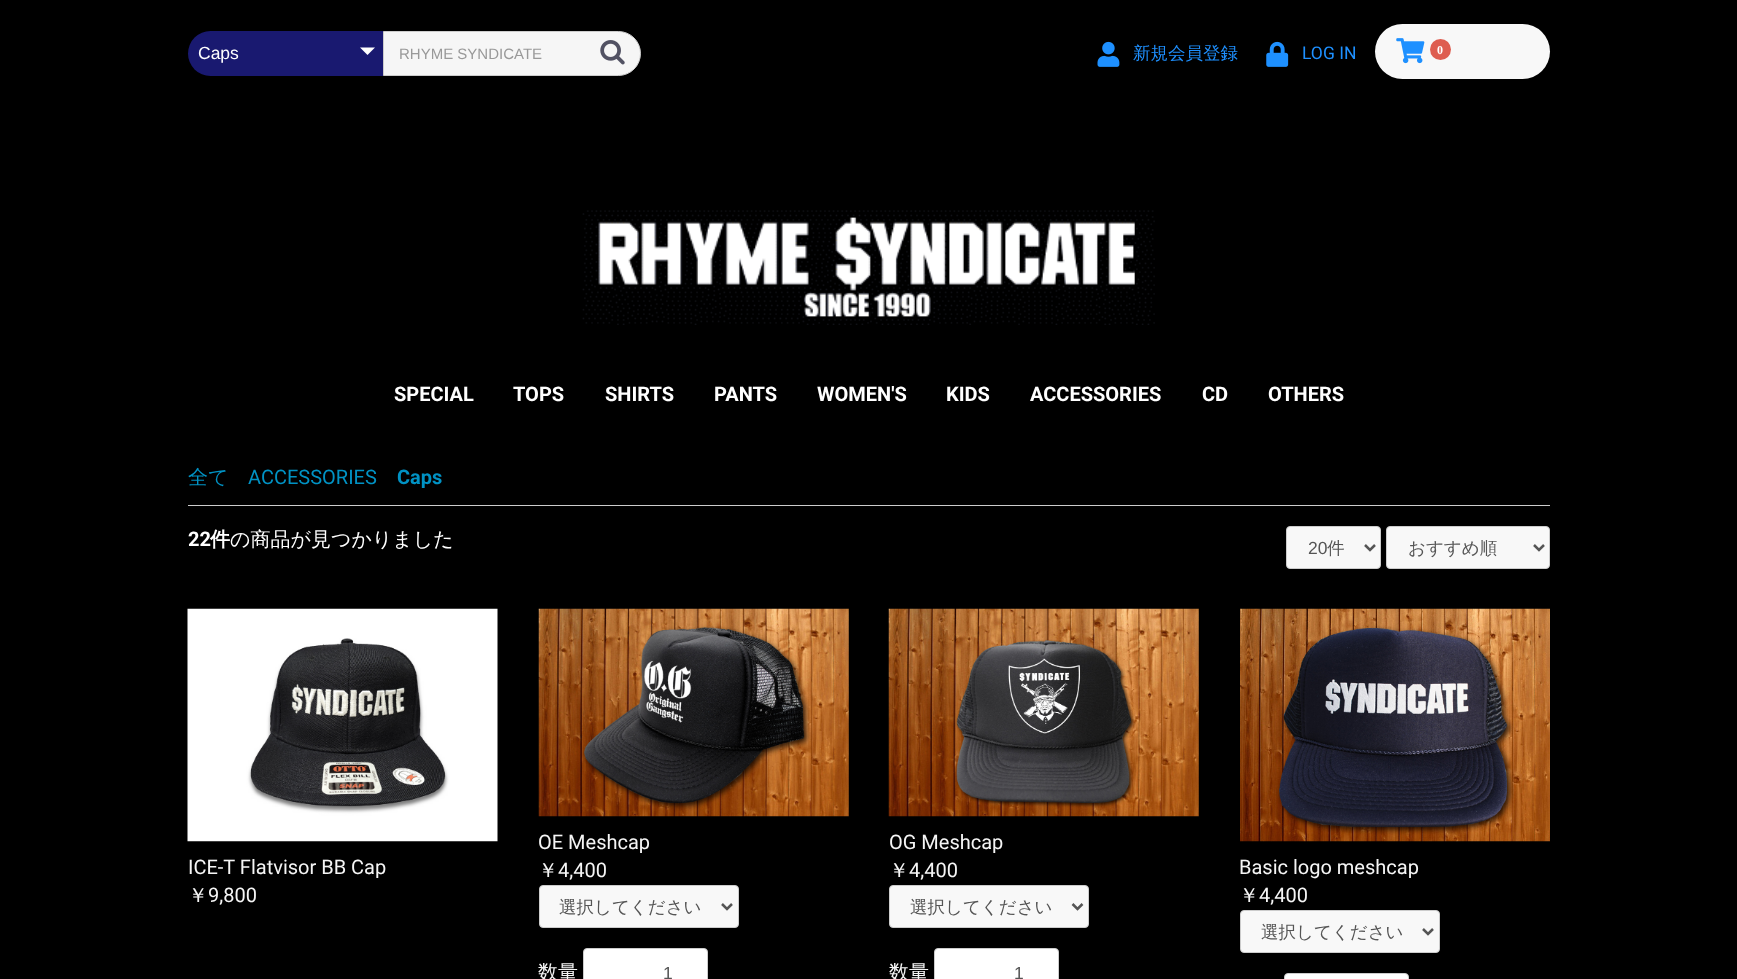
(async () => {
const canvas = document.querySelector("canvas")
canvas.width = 1737
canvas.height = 979
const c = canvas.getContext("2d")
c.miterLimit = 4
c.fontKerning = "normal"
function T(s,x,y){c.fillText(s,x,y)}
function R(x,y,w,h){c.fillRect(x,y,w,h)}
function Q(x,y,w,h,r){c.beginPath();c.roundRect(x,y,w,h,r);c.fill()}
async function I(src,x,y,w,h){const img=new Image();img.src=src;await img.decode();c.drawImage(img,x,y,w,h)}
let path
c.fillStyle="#000"
R(0,0,1737,979)
c.fillStyle="#191970"
c.beginPath()
c.roundRect(188,31,195,45,[22.5,0,0,22.5])
c.fill()
c.font="17.5px Liberation Sans"
c.fillStyle="#fff"
T("Caps",198,59)
path = new Path2D("M360 47.5h15l-7.5 7.5z")
c.fill(path)
c.fillStyle="#f6f6f6"
c.beginPath()
c.roundRect(383.5,31.5,257,44,[0,22,22,0])
c.fill()
c.strokeStyle="#ccc"
c.stroke()
c.font="15px Liberation Sans"
c.fillStyle="#999"
T("RHYME SYNDICATE",399,59)
await I("1.png",600,40,25,25)
await I("2.png",1097,41,23,26)
c.font="500 17.5px WenQuanYi Zen Hei"
c.fillStyle="#1e90ff"
T("新規会員登録",1133,59)
await I("3.png",1266,41,23,26)
c.font="17.5px Roboto"
T("LOG IN",1302,59)
c.fillStyle="#f8f8f8"
Q(1375,24,175,55,27.5)
await I("4.png",1396,38,29,26)
c.fillStyle="#de5d50"
c.beginPath()
c.arc(1440.5,49.5,10.5,0,7)
c.fill()
c.font="bold 12px Liberation Serif"
c.fillStyle="#fff"
T("0",1437,54)
await I("5.png",582,210,573,115)
c.font="bold 20px Roboto"
T("SPECIAL",394,401)
T("TOPS",513,401)
T("SHIRTS",605,401)
T("PANTS",714,401)
T("WOMEN'S",817,401)
T("KIDS",946,401)
T("ACCESSORIES",1030,401)
T("CD",1202,401)
T("OTHERS",1268,401)
c.font="500 20px WenQuanYi Zen Hei"
c.fillStyle="#0092c4"
T("全て",188,484)
c.font="20px Roboto"
T("ACCESSORIES",248,484)
c.font="bold 20px Roboto"
T("Caps",397,484)
c.fillStyle="#ccc"
R(188,505,1362,1)
c.fillStyle="#fff"
T("22",188,546)
c.font="bold 20px WenQuanYi Zen Hei"
T("件",210,546)
c.font="500 20px WenQuanYi Zen Hei"
T("の商品が見つかりました",230,546)
c.fillStyle="#f8f8f8"
c.beginPath()
c.roundRect(1286.5,526.5,94,42,3.5)
c.fill()
c.stroke()
path = new Path2D("M1365 545l5 5l5-5")
c.strokeStyle="#555"
c.lineWidth=2.5
c.stroke(path)
c.font="17.5px Liberation Sans"
c.fillStyle="#555"
T("20",1308,554)
c.font="500 17.5px WenQuanYi Zen Hei"
T("件",1327,554)
c.fillStyle="#f8f8f8"
c.beginPath()
c.roundRect(1386.5,526.5,163,42,3.5)
c.fill()
c.strokeStyle="#ccc"
c.lineWidth=1
c.stroke()
path = new Path2D("M1534 545l5 5l5-5")
c.strokeStyle="#555"
c.lineWidth=2.5
c.stroke(path)
c.fillStyle="#555"
T("おすすめ順",1408,554)
await I("6.png",187,608,311,234)
c.font="20px Roboto"
c.fillStyle="#f5f5f5"
T("ICE-T Flatvisor BB Cap",188,874)
c.font="500 20px WenQuanYi Zen Hei"
T("￥",188,902)
c.font="20px Roboto"
T("9,800",208,902)
await I("7.png",538,608,311,209)
T("OE Meshcap",538,849)
c.font="500 20px WenQuanYi Zen Hei"
T("￥",538,877)
c.font="20px Roboto"
T("4,400",558,877)
c.fillStyle="#f8f8f8"
c.beginPath()
c.roundRect(539.5,885.5,199,42,3.5)
c.fill()
c.strokeStyle="#ccc"
c.lineWidth=1
c.stroke()
path = new Path2D("M722 904l5 5l5-5")
c.strokeStyle="#555"
c.lineWidth=2.5
c.stroke(path)
c.font="500 17.5px WenQuanYi Zen Hei"
c.fillStyle="#555"
T("選択してください",559,913)
c.font="500 20px WenQuanYi Zen Hei"
c.fillStyle="#f5f5f5"
T("数量",538,979)
c.fillStyle="#fff"
c.beginPath()
c.roundRect(583.5,948.5,124,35,3.5)
c.fill()
c.strokeStyle="#ccc"
c.lineWidth=1
c.stroke()
c.font="17.5px Liberation Sans"
c.fillStyle="#555"
T("1",663,979)
await I("8.png",888,608,311,209)
c.font="20px Roboto"
c.fillStyle="#f5f5f5"
T("OG Meshcap",889,849)
c.font="500 20px WenQuanYi Zen Hei"
T("￥",889,877)
c.font="20px Roboto"
T("4,400",909,877)
c.fillStyle="#f8f8f8"
c.beginPath()
c.roundRect(889.5,885.5,199,42,3.5)
c.fill()
c.stroke()
path = new Path2D("M1072.5 904l5 5l5-5")
c.strokeStyle="#555"
c.lineWidth=2.5
c.stroke(path)
c.font="500 17.5px WenQuanYi Zen Hei"
c.fillStyle="#555"
T("選択してください",910,913)
c.font="500 20px WenQuanYi Zen Hei"
c.fillStyle="#f5f5f5"
T("数量",889,979)
c.fillStyle="#fff"
c.beginPath()
c.roundRect(934.5,948.5,124,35,3.5)
c.fill()
c.strokeStyle="#ccc"
c.lineWidth=1
c.stroke()
c.font="17.5px Liberation Sans"
c.fillStyle="#555"
T("1",1014,979)
await I("9.png",1240,608,310,234)
c.font="20px Roboto"
c.fillStyle="#f5f5f5"
T("Basic logo meshcap",1239,874)
c.font="500 20px WenQuanYi Zen Hei"
T("￥",1239,902)
c.font="20px Roboto"
T("4,400",1259,902)
c.fillStyle="#f8f8f8"
c.beginPath()
c.roundRect(1240.5,910.5,199,42,3.5)
c.fill()
c.stroke()
path = new Path2D("M1423 929l5 5l5-5")
c.strokeStyle="#555"
c.lineWidth=2.5
c.stroke(path)
c.font="500 17.5px WenQuanYi Zen Hei"
c.fillStyle="#555"
T("選択してください",1261,938)
c.fillStyle="#fff"
c.beginPath()
c.roundRect(1284.5,973.5,124,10,3.5)
c.fill()
c.strokeStyle="#ccc"
c.lineWidth=1
c.stroke()
})()
